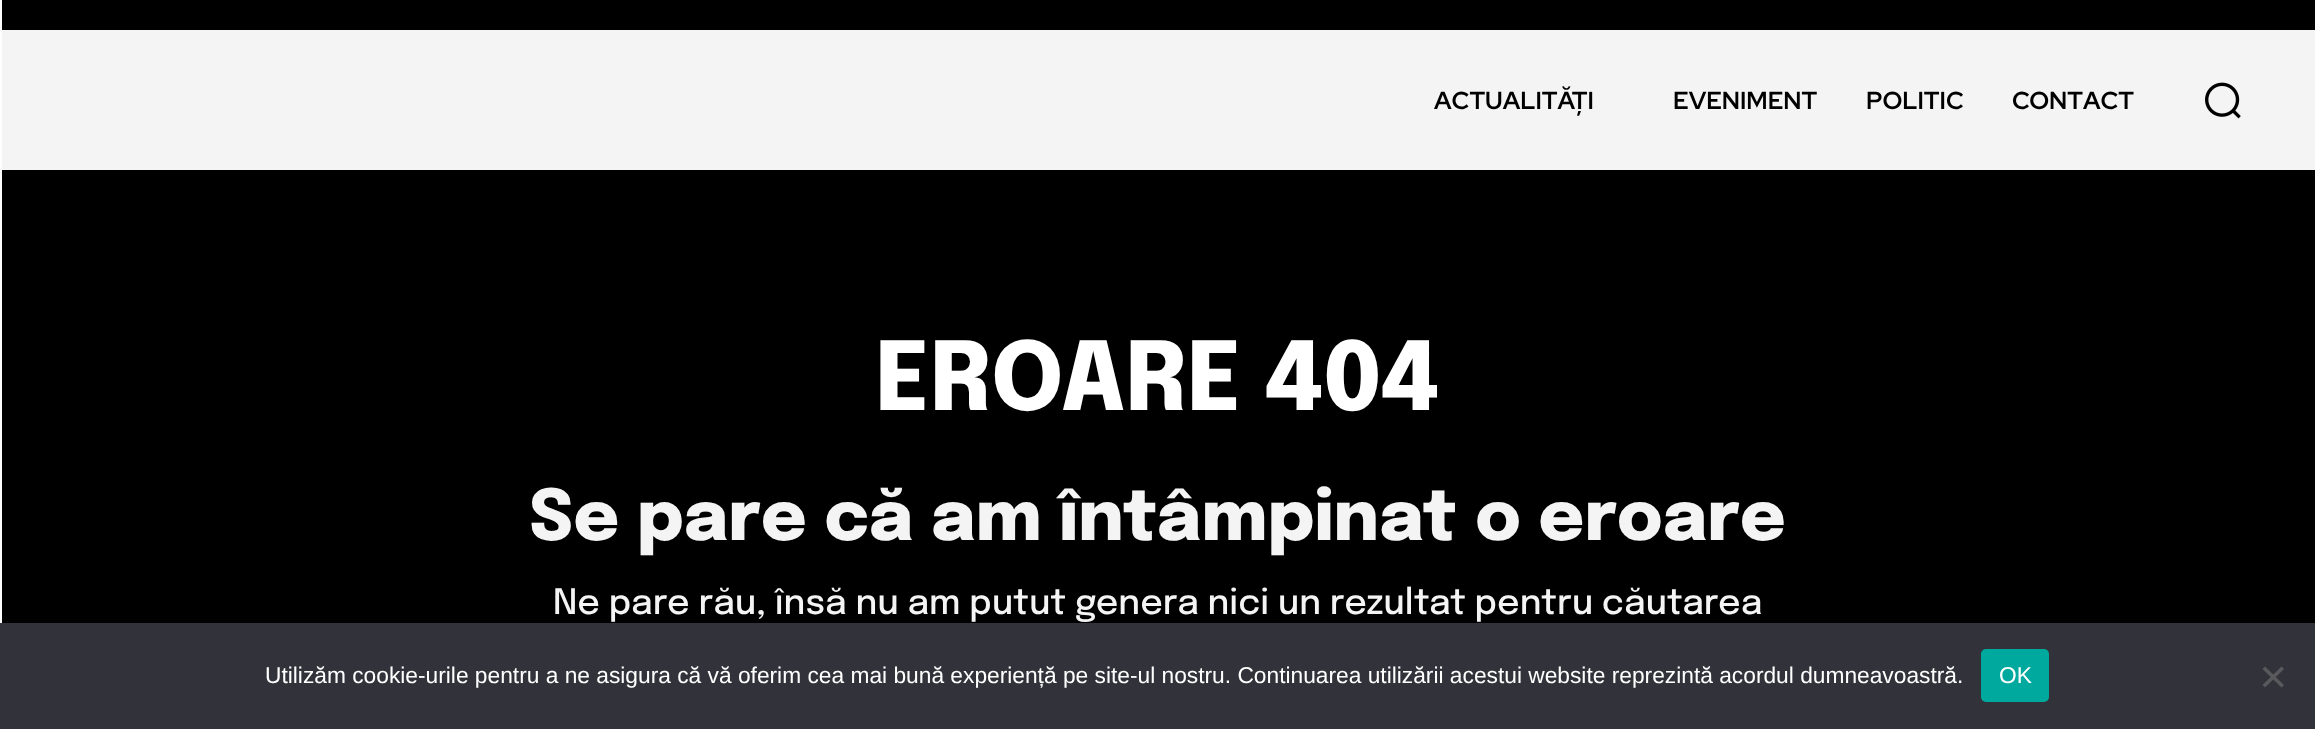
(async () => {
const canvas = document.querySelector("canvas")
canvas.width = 2315
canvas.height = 729
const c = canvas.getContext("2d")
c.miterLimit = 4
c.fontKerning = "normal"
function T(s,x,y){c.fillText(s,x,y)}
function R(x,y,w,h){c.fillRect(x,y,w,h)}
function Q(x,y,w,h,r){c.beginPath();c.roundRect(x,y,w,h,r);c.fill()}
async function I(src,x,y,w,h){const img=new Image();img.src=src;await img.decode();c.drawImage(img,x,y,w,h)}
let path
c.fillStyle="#fff"
R(0,0,2315,729)
c.fillStyle="#000"
R(2,0,2313,30)
c.fillStyle="#f4f4f4"
R(2,30,2313,140)
c.font="bold 24.5px Red Hat Display"
c.fillStyle="#000"
T("ACTUALITĂȚI",1434,109)
T("EVENIMENT",1673,109)
T("POLITIC",1866,109)
T("CONTACT",2012,109)
await I("1.png",2205,82,36,37)
R(2,170,2313,453)
c.font="800 94.5px Epilogue"
c.fillStyle="#fff"
T("EROARE 404",875,410)
c.font="800 70px Epilogue"
c.fillStyle="#f4f4f4"
T("Se pare că am întâmpinat o eroare",529,540)
c.font="500 35px Epilogue"
T("Ne pare rău, însă nu am putut genera nici un rezultat pentru căutarea",553,614)
c.fillStyle="#32323a"
R(0,623,2315,106)
c.font="22.75px Liberation Sans"
c.fillStyle="#fff"
T("Utilizăm cookie-urile pentru a ne asigura că vă oferim cea mai bună experiență pe site-ul nostru. Continuarea utilizării acestui website reprezintă acordul dumneavoastră.",265,683)
c.fillStyle="#00a99d"
Q(1981,649,68,53,5)
c.fillStyle="#fff"
T("OK",1999,683)
c.fillStyle="#59595d"
path = new Path2D("M2281.5 666.5l2.5 2.5l-19 18.5l-2.5-2.5z")
c.fill(path)
path = new Path2D("M2262.5 669l2.5-2.5l19 18.5l-2.5 2.5z")
c.fill(path)
})()
